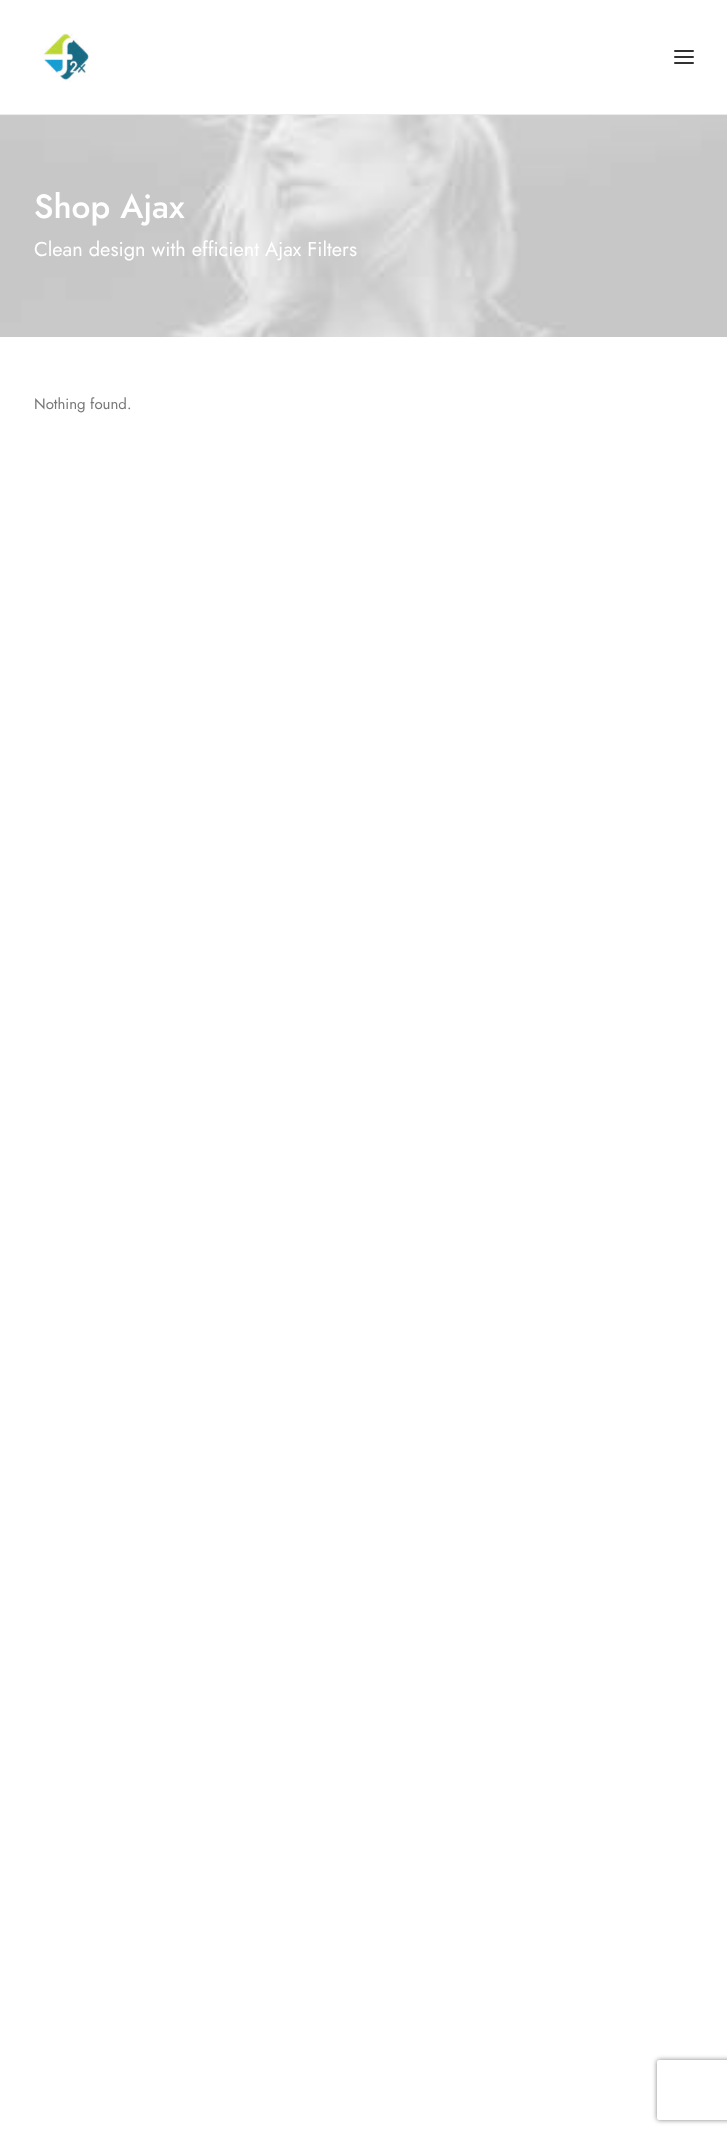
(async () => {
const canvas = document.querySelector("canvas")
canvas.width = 727
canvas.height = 2134
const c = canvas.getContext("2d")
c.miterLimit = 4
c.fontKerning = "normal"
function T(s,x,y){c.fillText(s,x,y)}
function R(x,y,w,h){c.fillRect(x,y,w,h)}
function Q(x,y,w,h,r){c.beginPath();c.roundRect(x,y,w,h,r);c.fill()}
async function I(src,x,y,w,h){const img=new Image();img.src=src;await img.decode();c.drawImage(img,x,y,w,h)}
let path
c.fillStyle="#fff"
R(0,0,727,2134)
c.fillStyle="#ebebeb"
R(0,114,727,1)
await I("1.png",42,33,47,49)
c.fillStyle="#303133"
Q(674,56,20,2,1)
Q(674,50,20,2,1)
Q(674,62,20,2,1)
await I("2.png",0,115,727,222)
c.font="500 33.5px Jost"
c.fillStyle="#fff"
T("Shop Ajax",34,218)
c.font="20px Jost"
T("Clean design with efficient Ajax Filters",34,256)
c.font="15px Jost"
c.fillStyle="#777"
T("Nothing found.",34,409)
c.save()
path = new Path2D("M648 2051h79v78h-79zm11 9h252c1 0 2 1 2 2v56c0 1-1 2-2 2h-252c-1 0-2-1-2-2v-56c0-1 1-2 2-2z")
c.clip(path,"evenodd")
c.fillStyle="#808080"
c.filter="blur(2.5px)"
c.beginPath()
c.roundRect(657,2060,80,60,2)
c.fill()
c.filter="none"
c.restore()
})()
